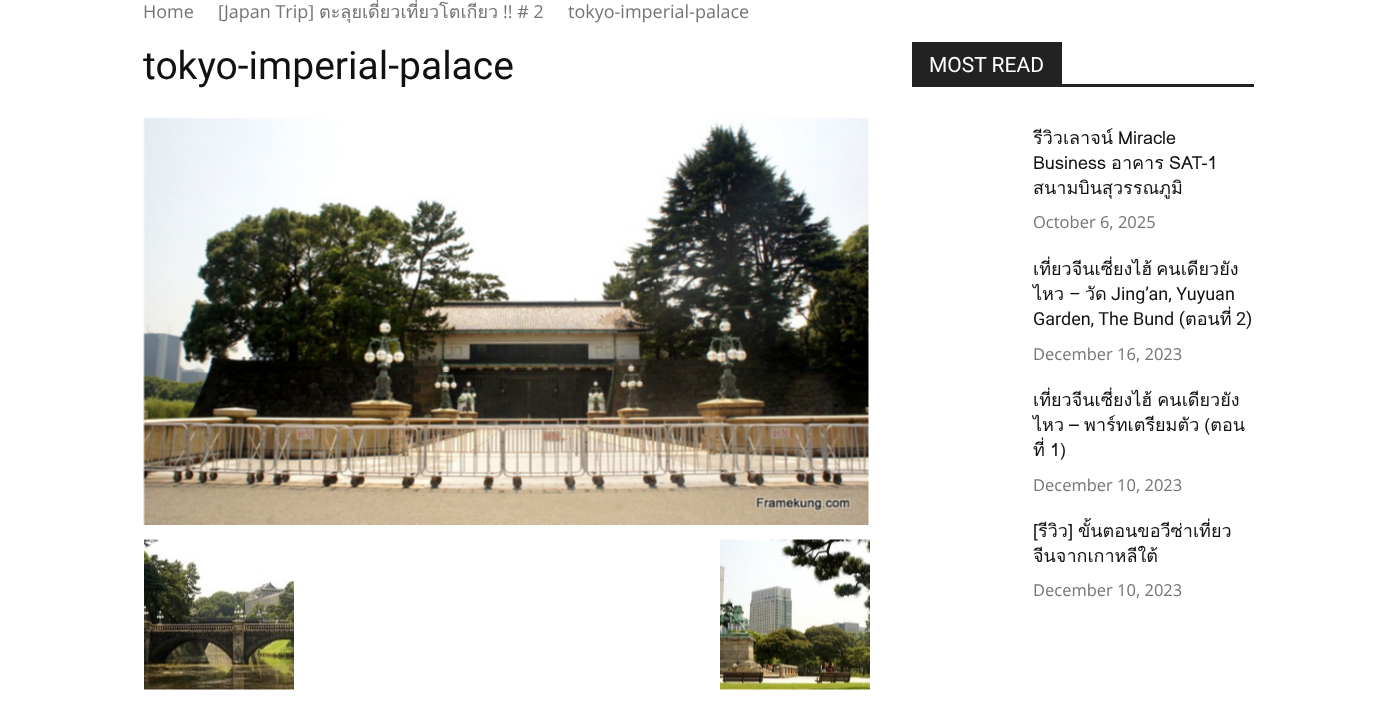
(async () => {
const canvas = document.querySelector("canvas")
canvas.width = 1396
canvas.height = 711
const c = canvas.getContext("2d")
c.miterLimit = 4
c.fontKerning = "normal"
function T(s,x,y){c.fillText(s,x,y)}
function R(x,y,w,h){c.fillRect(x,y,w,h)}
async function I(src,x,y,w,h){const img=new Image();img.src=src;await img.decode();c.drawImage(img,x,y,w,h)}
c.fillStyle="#fff"
R(0,0,1396,711)
c.font="18px Open Sans"
c.fillStyle="#747474"
T("Home",143,18)
T("[Japan Trip]",218,18)
c.font="18px Loma"
T("ตะลุยเดี่ยวเที่ยวโตเกียว",319,18)
c.font="18px Open Sans"
T("!! # 2",503,18)
T("tokyo-imperial-palace",568,18)
c.font="39px Roboto"
c.fillStyle="#111"
T("tokyo-imperial-palace",143,79)
await I("1.png",143,117,726,408)
await I("2.png",144,539,150,151)
await I("3.png",720,539,150,151)
c.fillStyle="#222"
R(912,84,342,3)
R(912,42,150,42)
c.font="21px Roboto"
c.fillStyle="#fff"
T("MOST READ",929,72)
c.wordSpacing="-1px"
c.font="18px Loma"
c.fillStyle="#111"
T("รีวิวเลาจน์ Miracle",1033,144)
T("Business อาคาร SAT-1",1033,169)
c.wordSpacing="0px"
T("สนามบินสุวรรณภูมิ",1033,194)
c.font="16.5px Open Sans"
c.fillStyle="#747474"
T("October 6, 2025",1033,228)
c.wordSpacing="-2px"
c.font="18px Loma"
c.fillStyle="#111"
T("เที่ยวจีนเซี่ยงไฮ้ คนเดียวยัง",1033,275)
c.wordSpacing="0px"
T("ไหว",1033,300)
c.font="18px Roboto"
T("–",1069,300)
c.font="18px Loma"
T("วัด",1085,300)
c.font="18px Roboto"
T("Jing’an, Yuyuan",1111,300)
T("Garden, The Bund (",1033,325)
c.font="18px Loma"
T("ตอนที่",1185,325)
c.font="18px Roboto"
T("2)",1236,325)
c.font="16.5px Open Sans"
c.fillStyle="#747474"
T("December 16, 2023",1033,360)
c.wordSpacing="-1px"
c.font="18px Loma"
c.fillStyle="#111"
T("เที่ยวจีนเซี่ยงไฮ้ คนเดียวยัง",1033,406)
T("ไหว – พาร์ทเตรียมตัว (ตอน",1033,431)
T("ที่ 1)",1033,456)
c.wordSpacing="0px"
c.font="16.5px Open Sans"
c.fillStyle="#747474"
T("December 10, 2023",1033,491)
c.wordSpacing="-1px"
c.font="18px Loma"
c.fillStyle="#111"
T("[รีวิว] ขั้นตอนขอวีซ่าเที่ยว",1033,537)
c.wordSpacing="0px"
T("จีนจากเกาหลีใต้",1033,562)
c.font="16.5px Open Sans"
c.fillStyle="#747474"
T("December 10, 2023",1033,596)
})()
